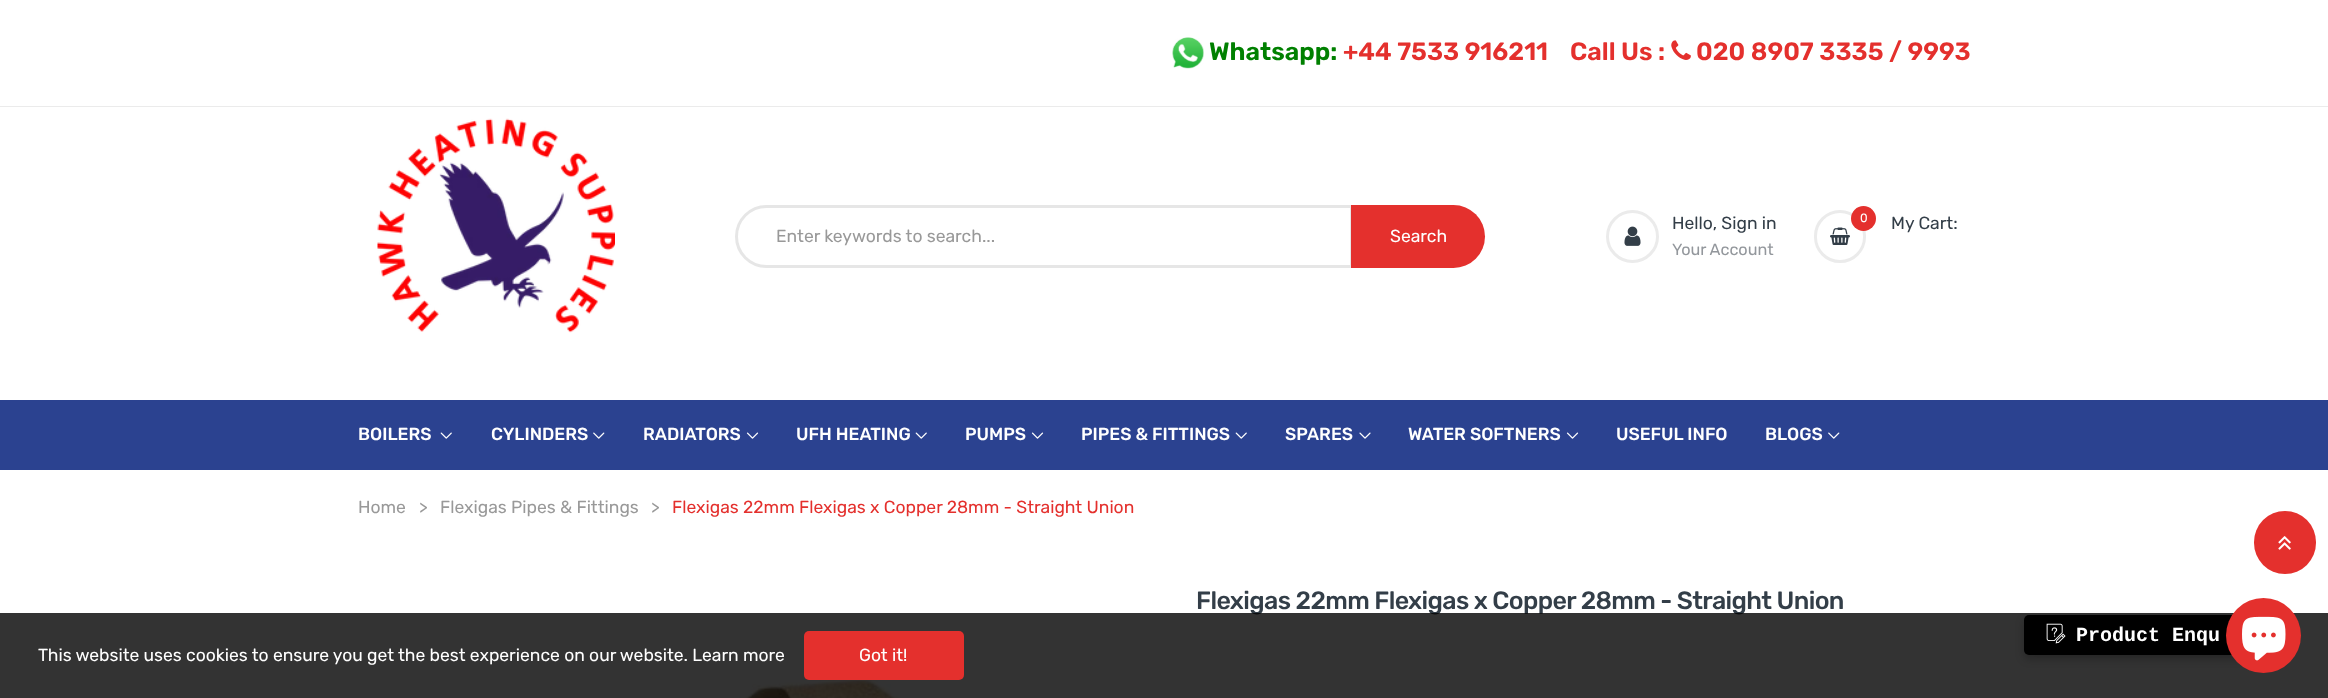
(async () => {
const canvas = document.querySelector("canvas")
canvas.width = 2328
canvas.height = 698
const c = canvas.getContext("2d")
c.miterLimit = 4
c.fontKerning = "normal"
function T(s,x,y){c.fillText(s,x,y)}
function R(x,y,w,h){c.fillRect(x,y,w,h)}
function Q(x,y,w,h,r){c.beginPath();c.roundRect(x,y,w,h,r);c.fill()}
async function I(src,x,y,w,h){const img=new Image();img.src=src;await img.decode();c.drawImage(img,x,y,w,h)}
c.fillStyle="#fff"
R(0,0,2328,698)
c.fillStyle="#ebebeb"
R(0,106,2328,1)
await I("1.png",1172,37,32,32)
c.font="600 25px Rubik"
c.fillStyle="#008000"
T("Whatsapp:",1209,60)
c.fillStyle="#e4302d"
T("+44 7533 916211",1343,60)
T("Call Us :",1570,60)
await I("2.png",1671,40,20,20)
T("020 8907 3335 / 9993",1696,60)
await I("3.png",377,118,238,215)
c.beginPath()
c.roundRect(736.5,206.5,615,60,[30,0,0,30])
c.strokeStyle="#e6e6e6"
c.lineWidth=3
c.stroke()
c.font="17.5px Rubik"
c.fillStyle="#999"
T("Enter keywords to search...",776,242)
c.fillStyle="#e4302d"
c.beginPath()
c.roundRect(1351,205,134,63,[0,31.5,31.5,0])
c.fill()
c.fillStyle="#fff"
T("Search",1390,242)
c.beginPath()
c.arc(1632.5,236.5,25,0,7)
c.strokeStyle="#ebebeb"
c.stroke()
await I("4.png",1624,226,17,20)
c.fillStyle="#333e48"
T("Hello, Sign in",1672,229)
c.font="16.25px Rubik"
c.fillStyle="#93979c"
T("Your Account",1672,255)
c.beginPath()
c.roundRect(1815.5,211.5,49,50,24.5)
c.stroke()
await I("5.png",1830,227,20,18)
c.fillStyle="#e4302d"
c.beginPath()
c.arc(1863.5,218.5,12.5,0,7)
c.fill()
c.font="12px Rubik"
c.fillStyle="#fff"
T("0",1860,222)
c.font="17.5px Rubik"
c.fillStyle="#333e48"
T("My Cart:",1891,229)
c.fillStyle="#2b4290"
R(0,400,2328,70)
c.font="500 17.5px Rubik"
c.fillStyle="#fff"
T("BOILERS",358,440)
await I("6.png",440,432,12,7)
T("CYLINDERS",491,440)
await I("7.png",593,432,12,7)
T("RADIATORS",643,440)
await I("8.png",746,432,13,7)
T("UFH HEATING",796,440)
await I("6.png",915,432,12,7)
T("PUMPS",965,440)
await I("8.png",1031,432,13,7)
T("PIPES & FITTINGS",1081,440)
await I("6.png",1235,432,12,7)
T("SPARES",1285,440)
await I("9.png",1359,432,12,7)
T("WATER SOFTNERS",1408,440)
await I("8.png",1566,432,13,7)
T("USEFUL INFO",1616,440)
T("BLOGS",1765,440)
await I("7.png",1828,432,12,7)
c.font="17.5px Rubik"
c.fillStyle="#999"
T("Home",358,513)
T(">",419,513)
T("Flexigas Pipes & Fittings",440,513)
T(">",651,513)
c.fillStyle="#e4302d"
T("Flexigas 22mm Flexigas x Copper 28mm - Straight Union",672,513)
c.letterSpacing="-0.62px"
c.font="500 25px Rubik"
c.fillStyle="#333e48"
T("Flexigas 22mm Flexigas x Copper 28mm - Straight Union",1196,609)
await I("10.png",739,670,162,28)
c.fillStyle="#e4302d"
Q(2254,511,62,63,31)
await I("11.png",2278,536,13,14)
c.fillStyle="#000000cc"
R(0,613,2328,85)
c.fillStyle="#00000040"
c.filter="blur(4px)"
c.beginPath()
c.roundRect(2024,619,255,40,5)
c.fill()
c.filter="none"
c.fillStyle="#000"
Q(2024,615,255,40,5)
await I("12.png",2046,623,20,21)
c.letterSpacing="0px"
c.font="bold 20px Liberation Mono"
c.fillStyle="#fff"
T("Product Enqu",2076,641)
c.fillStyle="#e4302d"
c.beginPath()
c.arc(2263.5,635.5,37.5,0,7)
c.fill()
await I("13.png",2242,616,44,45)
c.font="17.5px Rubik"
c.fillStyle="#fff"
T("This website uses cookies to ensure you get the best experience on our website. Learn more",38,661)
c.fillStyle="#e4302d"
Q(804,631,160,49,5)
c.fillStyle="#fff"
T("Got it!",859,661)
})()
